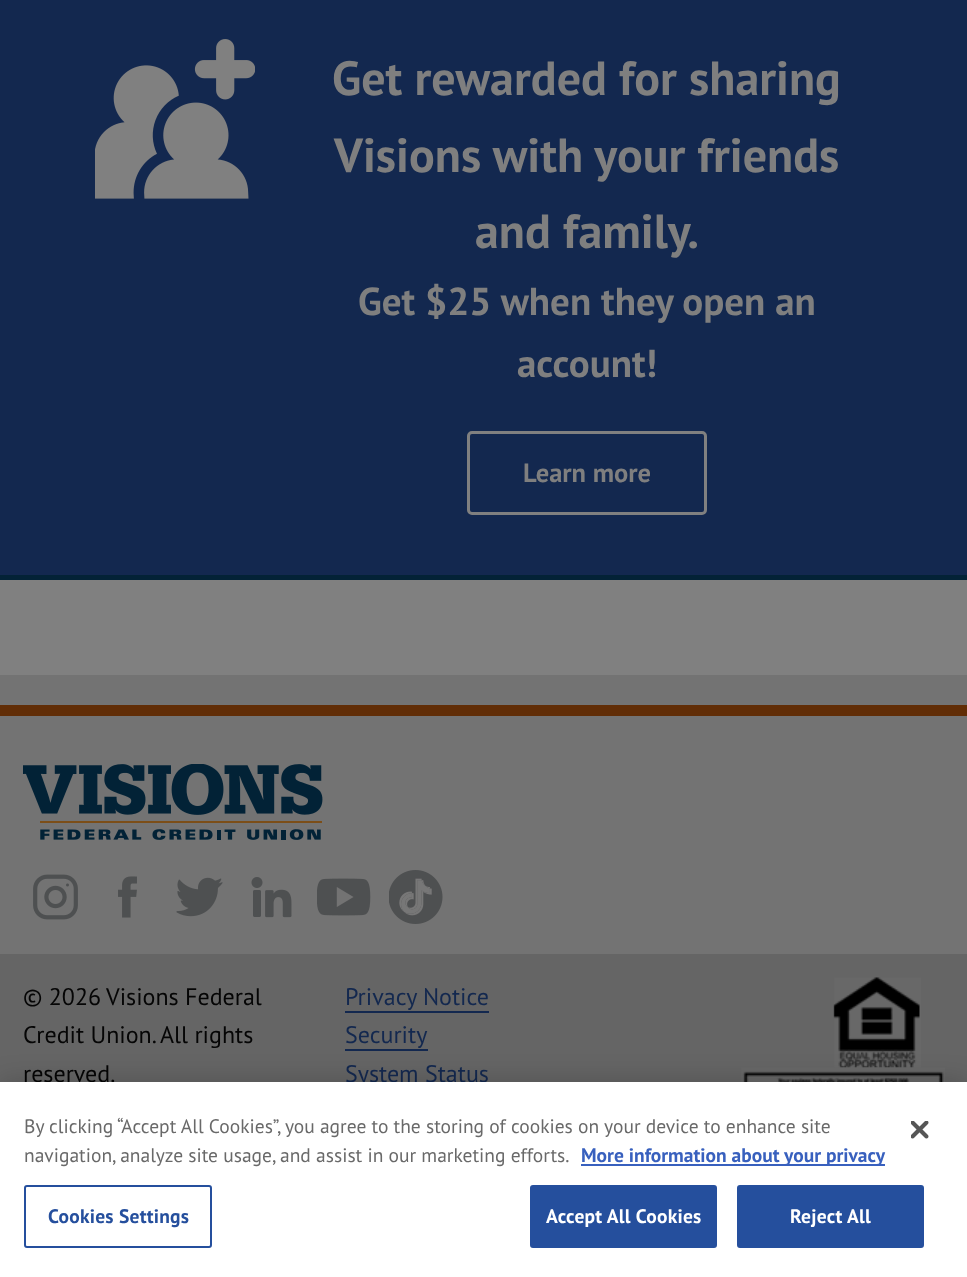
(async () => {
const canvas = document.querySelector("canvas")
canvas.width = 967
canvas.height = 1277
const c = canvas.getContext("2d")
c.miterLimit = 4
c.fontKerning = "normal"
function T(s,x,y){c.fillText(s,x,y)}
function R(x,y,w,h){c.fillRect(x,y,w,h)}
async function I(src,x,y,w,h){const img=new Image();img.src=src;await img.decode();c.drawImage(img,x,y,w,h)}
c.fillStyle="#808080"
R(0,0,967,1277)
c.fillStyle="#13284f"
R(0,0,967,575)
c.fillStyle="#032236"
R(0,575,967,5)
await I("1.png",95,39,160,160)
c.font="bold 48px PT Sans"
c.fillStyle="#7f7f7f"
T("Get rewarded for sharing",332,95)
T("Visions with your friends",334,172)
T("and family.",475,248)
c.font="bold 39px PT Sans"
T("Get $25 when they open an",358,315)
T("account!",517,377)
c.beginPath()
c.roundRect(468.5,432.5,237,81,3.5)
c.strokeStyle="#808080"
c.lineWidth=3
c.stroke()
c.font="bold 26.5px PT Sans"
T("Learn more",523,482)
c.fillStyle="#737373"
R(0,675,967,279)
c.fillStyle="#612d06"
R(0,705,967,11)
await I("2.png",23,764,300,76)
await I("3.png",33,874,45,46)
await I("4.png",118,876,19,42)
await I("5.png",176,877,47,40)
await I("6.png",251,877,41,41)
await I("7.png",317,878,54,38)
await I("8.png",389,870,54,54)
c.fillStyle="#656565"
R(0,954,967,128)
c.font="24px PT Sans"
c.fillStyle="#050505"
T("© 2026",23,1005)
T("Visions Federal",106,1005)
T("Credit Union.",23,1043)
T("All rights",160,1043)
T("reserved.",23,1082)
c.fillStyle="#13284f"
T("Privacy Notice",345,1005)
R(345,1011,144,2)
T("Security",345,1043)
R(345,1049,83,2)
T("System Status",345,1082)
await I("9.png",833,977,88,91)
await I("10.png",741,1067,204,15)
c.fillStyle="#00000033"
c.filter="blur(13.5px)"
c.beginPath()
c.rect(0,1082,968,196)
c.fill()
c.filter="none"
c.fillStyle="#fff"
R(0,1082,967,195)
c.font="19.5px PT Sans"
c.fillStyle="#696969"
T("By clicking “Accept All Cookies”, you agree to the storing of cookies on your device to enhance site",24,1133)
T("navigation, analyze site usage, and assist in our marketing efforts.",24,1162)
c.fillStyle="#3860be"
R(581,1164,304,2)
c.font="bold 19.5px PT Sans"
T("More information about your privacy",581,1162)
c.beginPath()
c.roundRect(25,1186,186,61,2)
c.strokeStyle="#254f9d"
c.lineWidth=2
c.stroke()
c.letterSpacing="0.25px"
c.fillStyle="#254f9d"
T("Cookies Settings",48,1223)
c.beginPath()
c.roundRect(531,1186,185,61,2)
c.fill()
c.stroke()
c.fillStyle="#fff"
T("Accept All Cookies",546,1223)
c.fillStyle="#254f9d"
c.beginPath()
c.roundRect(738,1186,185,61,2)
c.fill()
c.stroke()
c.fillStyle="#fff"
T("Reject All",790,1223)
await I("11.png",911,1121,18,18)
})()
